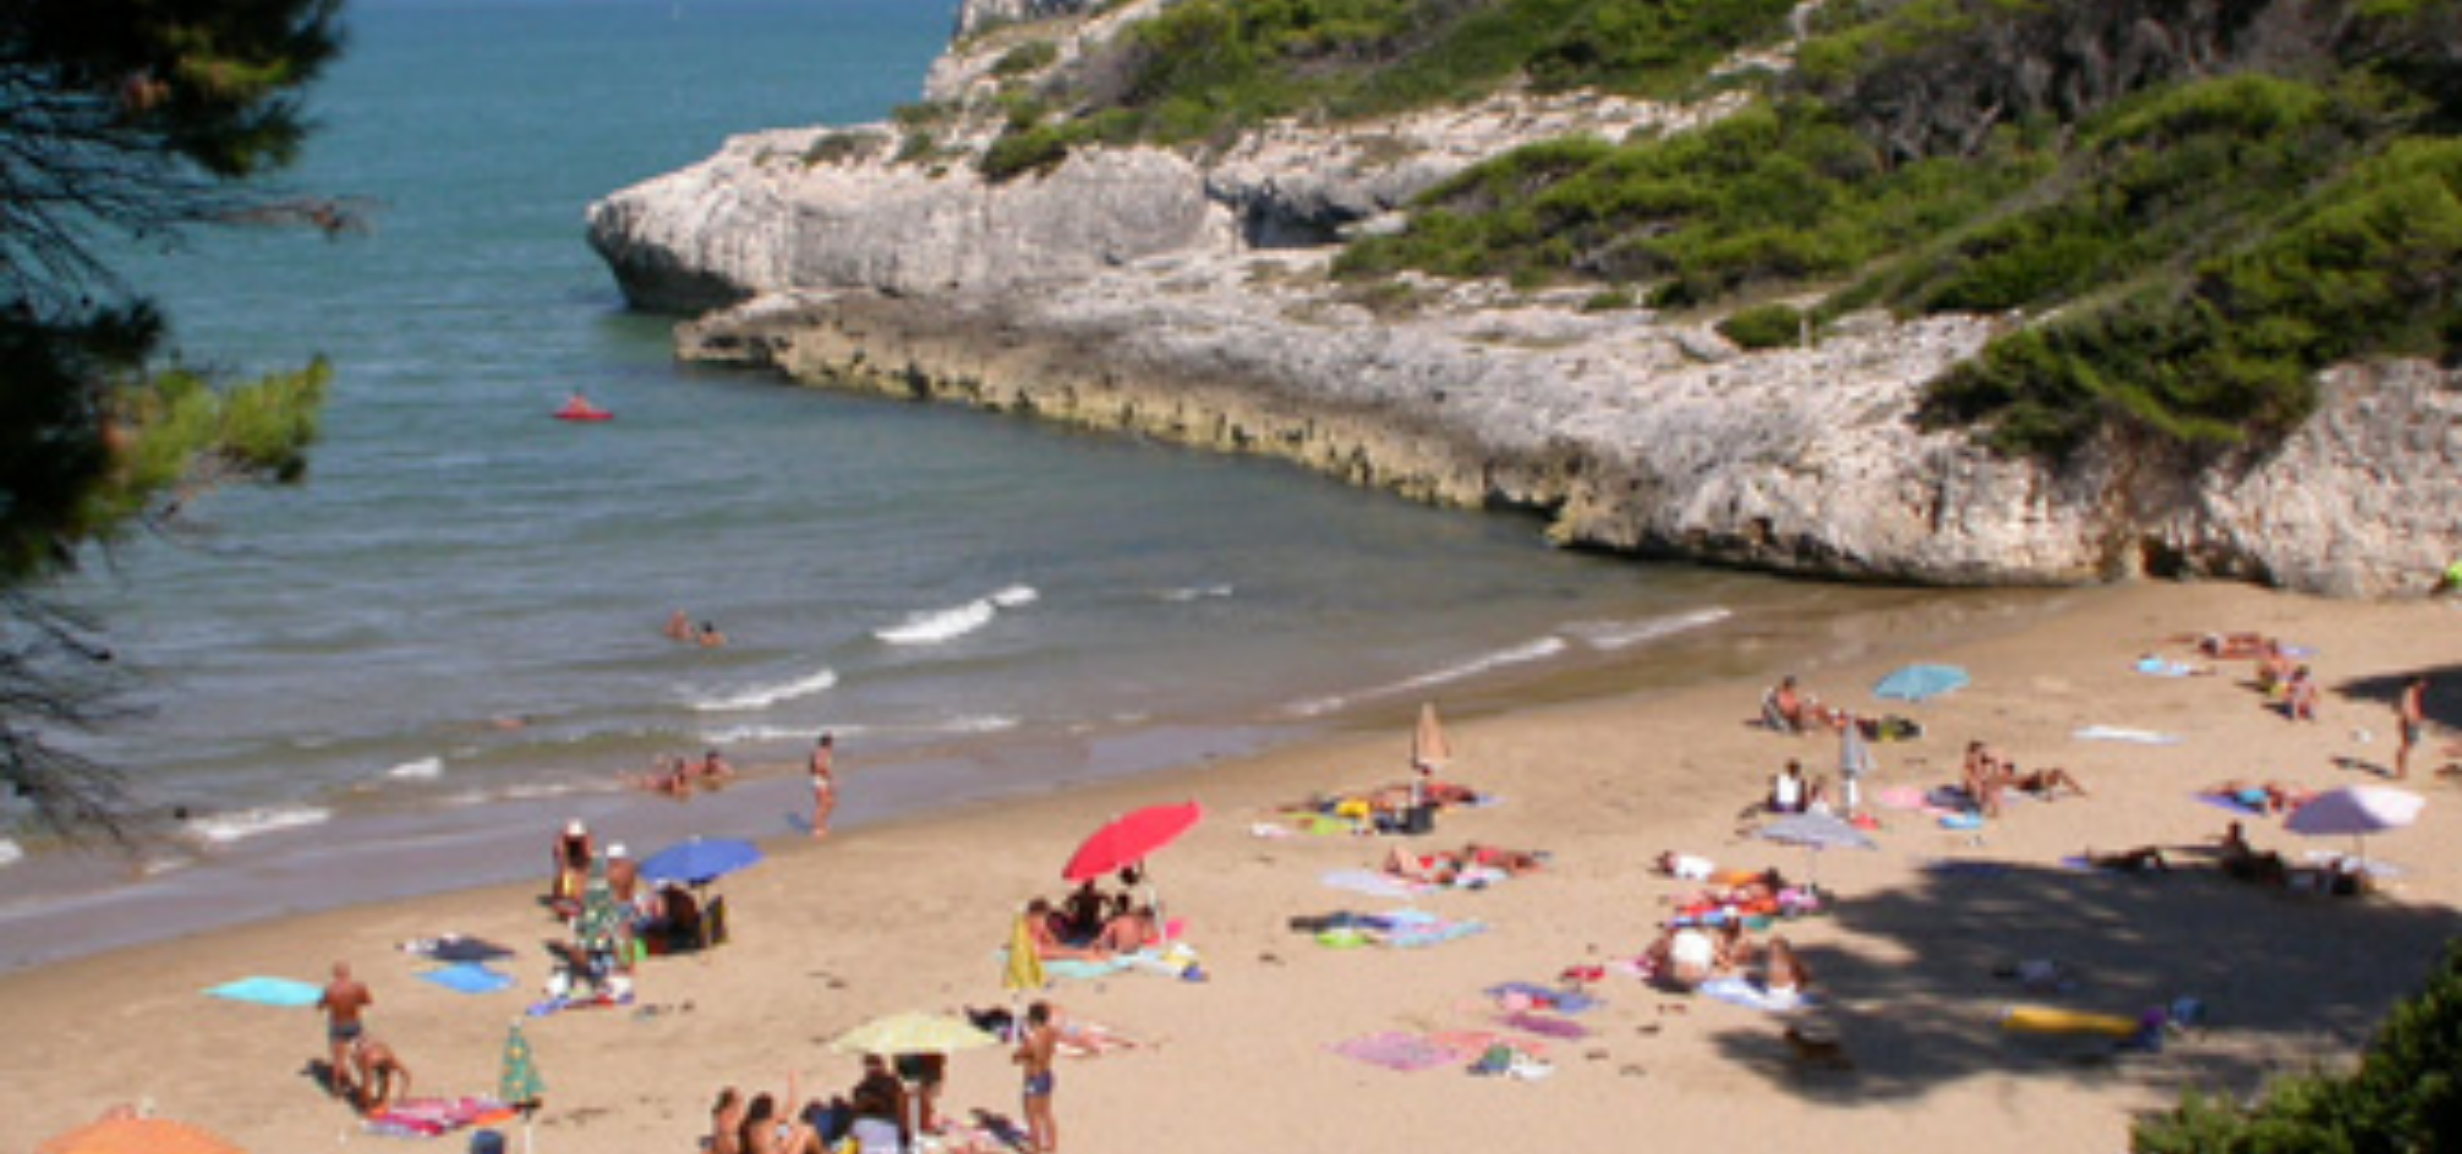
(async () => {
const canvas = document.querySelector("canvas")
canvas.width = 2462
canvas.height = 1154
const c = canvas.getContext("2d")
c.miterLimit = 4
c.fontKerning = "normal"
function R(x,y,w,h){c.fillRect(x,y,w,h)}
async function I(src,x,y,w,h){const img=new Image();img.src=src;await img.decode();c.drawImage(img,x,y,w,h)}
c.fillStyle="#fff"
R(0,0,2462,1154)
await I("1.png",0,0,2462,1154)
})()
